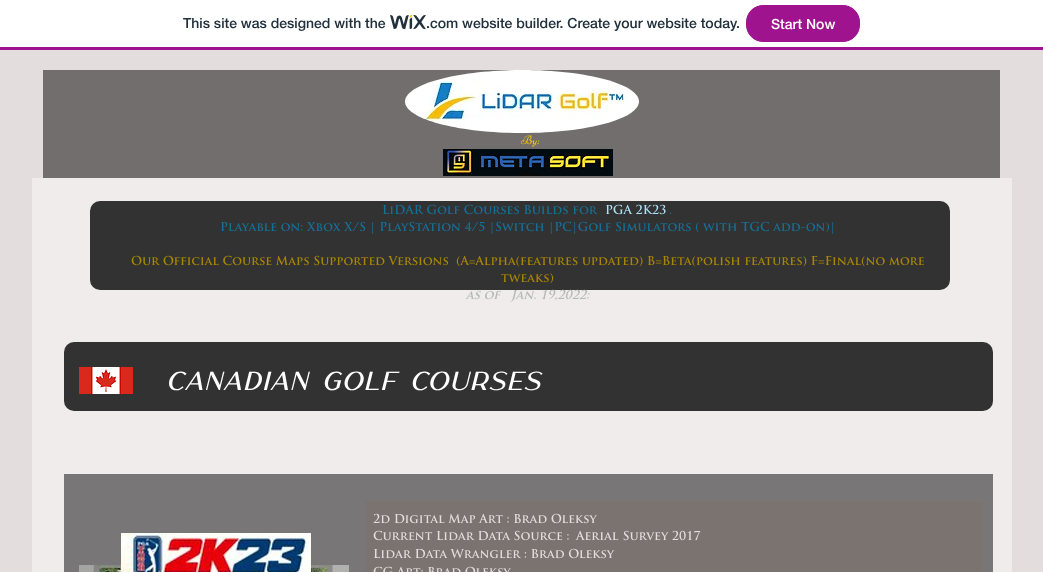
(async () => {
const canvas = document.querySelector("canvas")
canvas.width = 1043
canvas.height = 572
const c = canvas.getContext("2d")
c.miterLimit = 4
c.fontKerning = "normal"
function T(s,x,y){c.fillText(s,x,y)}
function R(x,y,w,h){c.fillRect(x,y,w,h)}
function Q(x,y,w,h,r){c.beginPath();c.roundRect(x,y,w,h,r);c.fill()}
async function I(src,x,y,w,h){const img=new Image();img.src=src;await img.decode();c.drawImage(img,x,y,w,h)}
c.fillStyle="#fff"
R(0,0,1043,572)
c.fillStyle="#a0138e"
R(0,47,1043,3)
c.font="500 14px 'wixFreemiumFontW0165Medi'"
c.fillStyle="#20303c"
T("This site was designed with the",183,28)
await I("1.png",390,15,36,15)
T(".com website builder. Create your website today.",426,28)
c.fillStyle="#a0138e"
c.beginPath()
c.roundRect(746.5,5.5,113,36,16.5)
c.fill()
c.strokeStyle="#a0138e"
c.stroke()
c.fillStyle="#fff"
T("Start Now",771,29)
c.fillStyle="#e3dddd"
R(0,50,1043,522)
c.fillStyle="#726e6e"
R(43,70,957,108)
await I("2.png",405,70,234,63)
await I("3.png",520,135,20,12)
await I("4.png",443,149,170,27)
c.fillStyle="#f0ecec"
R(32,178,980,394)
c.fillStyle="#323232"
Q(90,201,860,89,10)
await I("5.png",383,204,215,11)
await I("6.png",605,204,61,11)
await I("7.png",669,212,3,2)
await I("8.png",221,221,613,13)
await I("9.png",131,255,793,12)
await I("10.png",501,273,53,11)
await I("11.png",465,289,125,13)
Q(64,342,929,69,10)
await I("12.png",79,367,54,27)
c.letterSpacing="2px"
c.font="italic bold 25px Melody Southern"
c.fillStyle="#fff"
T("Canadian Golf Courses",166,390)
c.fillStyle="#787676"
R(64,474,929,98)
await I("20.png",79,565,270,7)
await I("13.png",121,533,190,39)
c.fillStyle="#7b736f"
R(366,501,617,71)
await I("14.png",373,513,224,11)
await I("15.png",373,530,196,11)
await I("16.png",575,530,44,11)
await I("17.png",623,530,78,11)
await I("18.png",374,548,241,11)
await I("19.png",373,566,138,6)
})()
